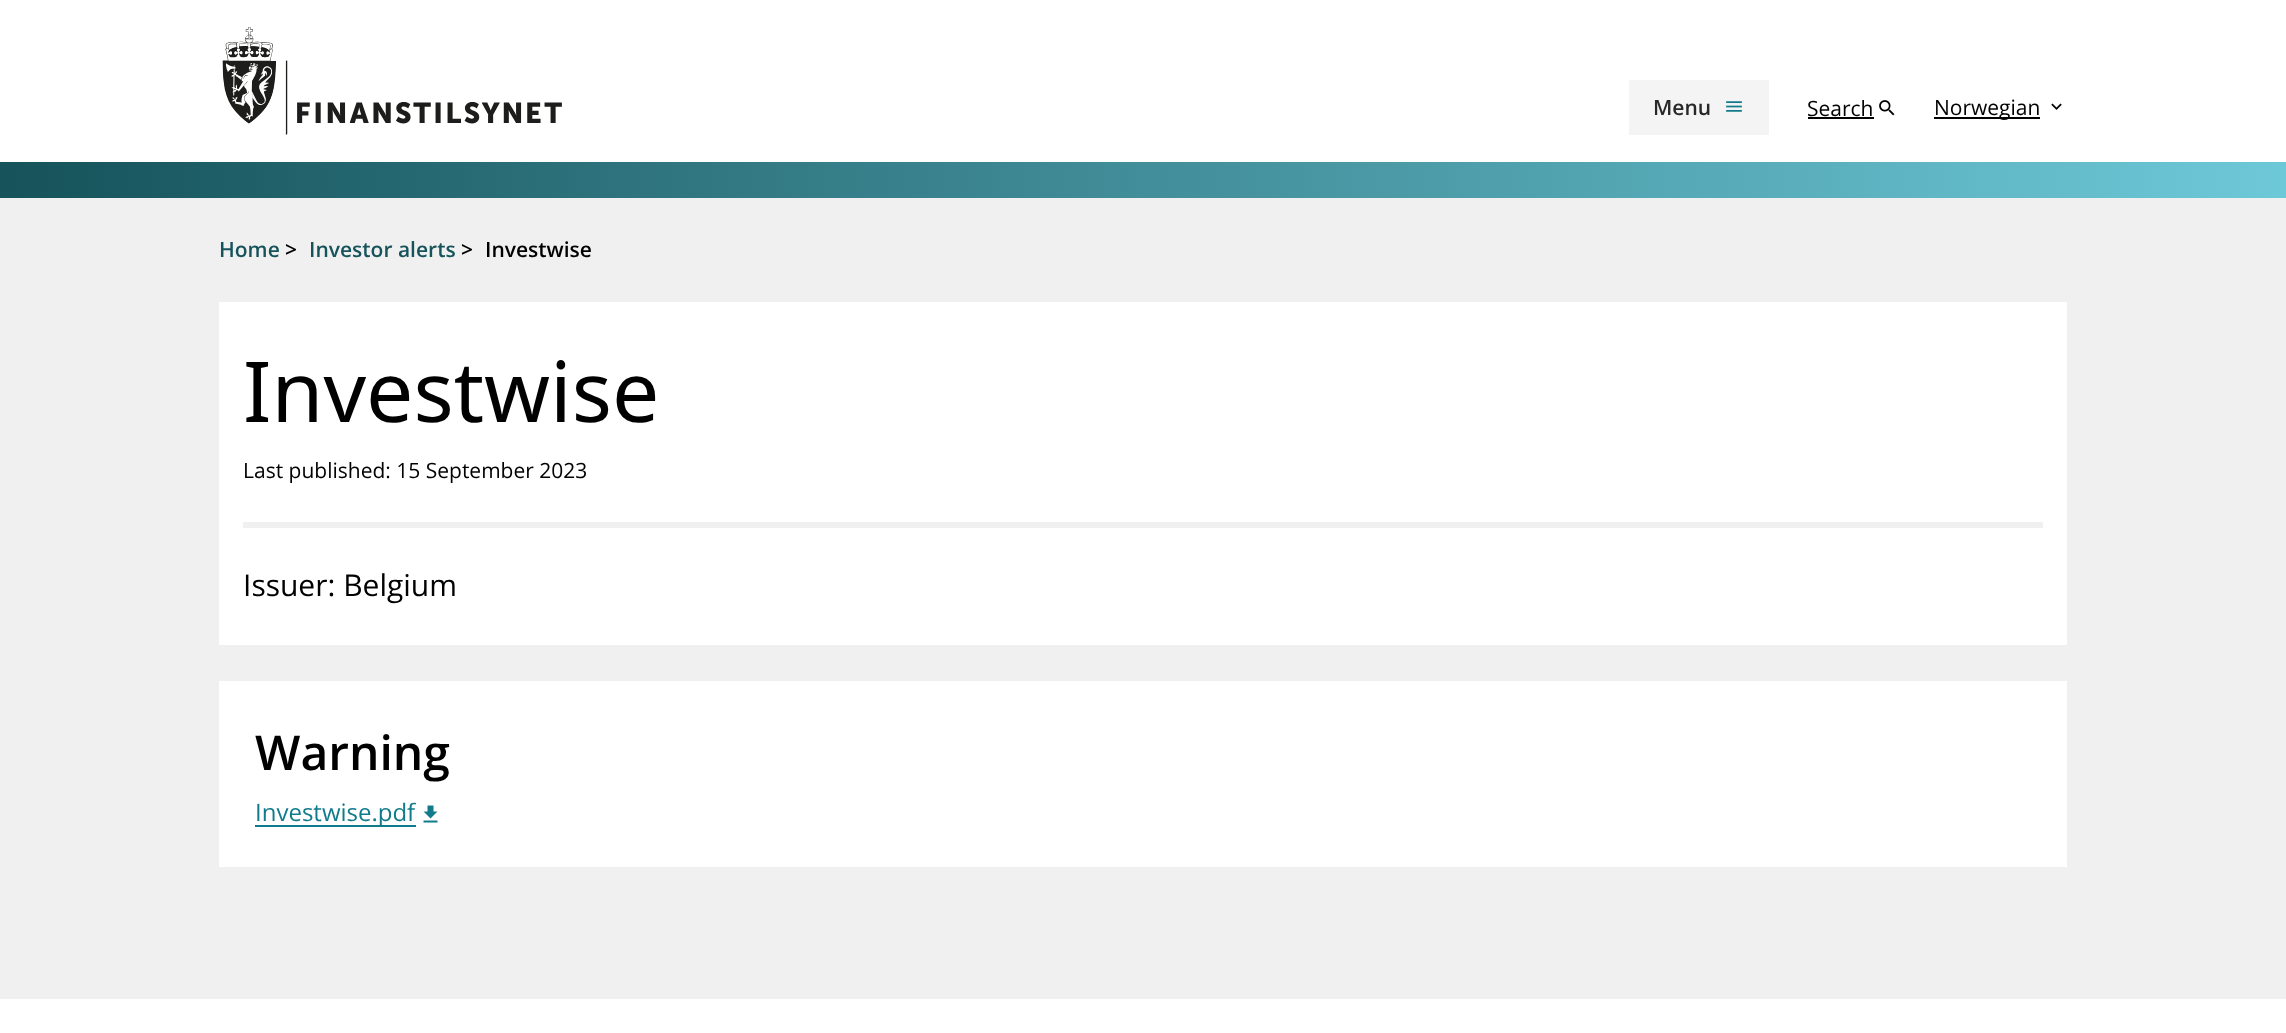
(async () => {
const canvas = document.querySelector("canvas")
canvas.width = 2286
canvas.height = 1033
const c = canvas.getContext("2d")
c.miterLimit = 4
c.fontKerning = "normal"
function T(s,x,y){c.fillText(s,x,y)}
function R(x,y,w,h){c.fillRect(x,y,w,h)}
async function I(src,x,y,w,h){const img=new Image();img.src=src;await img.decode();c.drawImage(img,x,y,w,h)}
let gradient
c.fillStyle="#f0f0f0"
R(0,0,2286,1033)
c.fillStyle="#fff"
R(0,0,2286,162)
await I("1.png",222,27,340,108)
c.fillStyle="#f4f4f4"
R(1629,80,140,55)
c.font="600 21px Open Sans"
c.fillStyle="#282828"
T("Menu",1653,115)
await I("2.png",1726,101,16,11)
c.font="21px Open Sans"
c.fillStyle="#000"
T("Search",1807,116)
R(1808,117,66,2)
await I("3.png",1879,100,16,16)
R(1934,117,106,2)
T("Norwegian",1934,115)
await I("4.png",2051,103,11,7)
gradient = c.createLinearGradient(0,180,2286,180)
gradient.addColorStop(0,"#16535b")
gradient.addColorStop(1,"#6dc8d7")
c.fillStyle = gradient
R(0,162,2286,36)
c.font="600 21px Open Sans"
c.fillStyle="#16535b"
T("Home",219,257)
c.fillStyle="#000"
T(">",285,257)
c.fillStyle="#16535b"
T("Investor alerts",309,257)
c.fillStyle="#000"
T(">",461,257)
T("Investwise",485,257)
c.fillStyle="#fff"
R(219,302,1848,343)
c.font="84px Noto Sans"
c.fillStyle="#000"
T("Investwise",243,422)
c.font="21px Open Sans"
T("Last published: 15 September 2023",243,478)
c.fillStyle="#f0f0f0"
R(243,522,1800,6)
c.font="30px Open Sans"
c.fillStyle="#000"
T("Issuer: Belgium",243,596)
c.fillStyle="#fff"
R(219,681,1848,186)
c.font="600 48px Open Sans"
c.fillStyle="#000"
T("Warning",255,770)
c.fillStyle="#117b8c"
R(255,825,161,2)
c.font="24px Open Sans"
T("Investwise.pdf",255,821)
await I("5.png",423,805,15,18)
c.fillStyle="#fff"
R(0,999,2286,34)
})()
